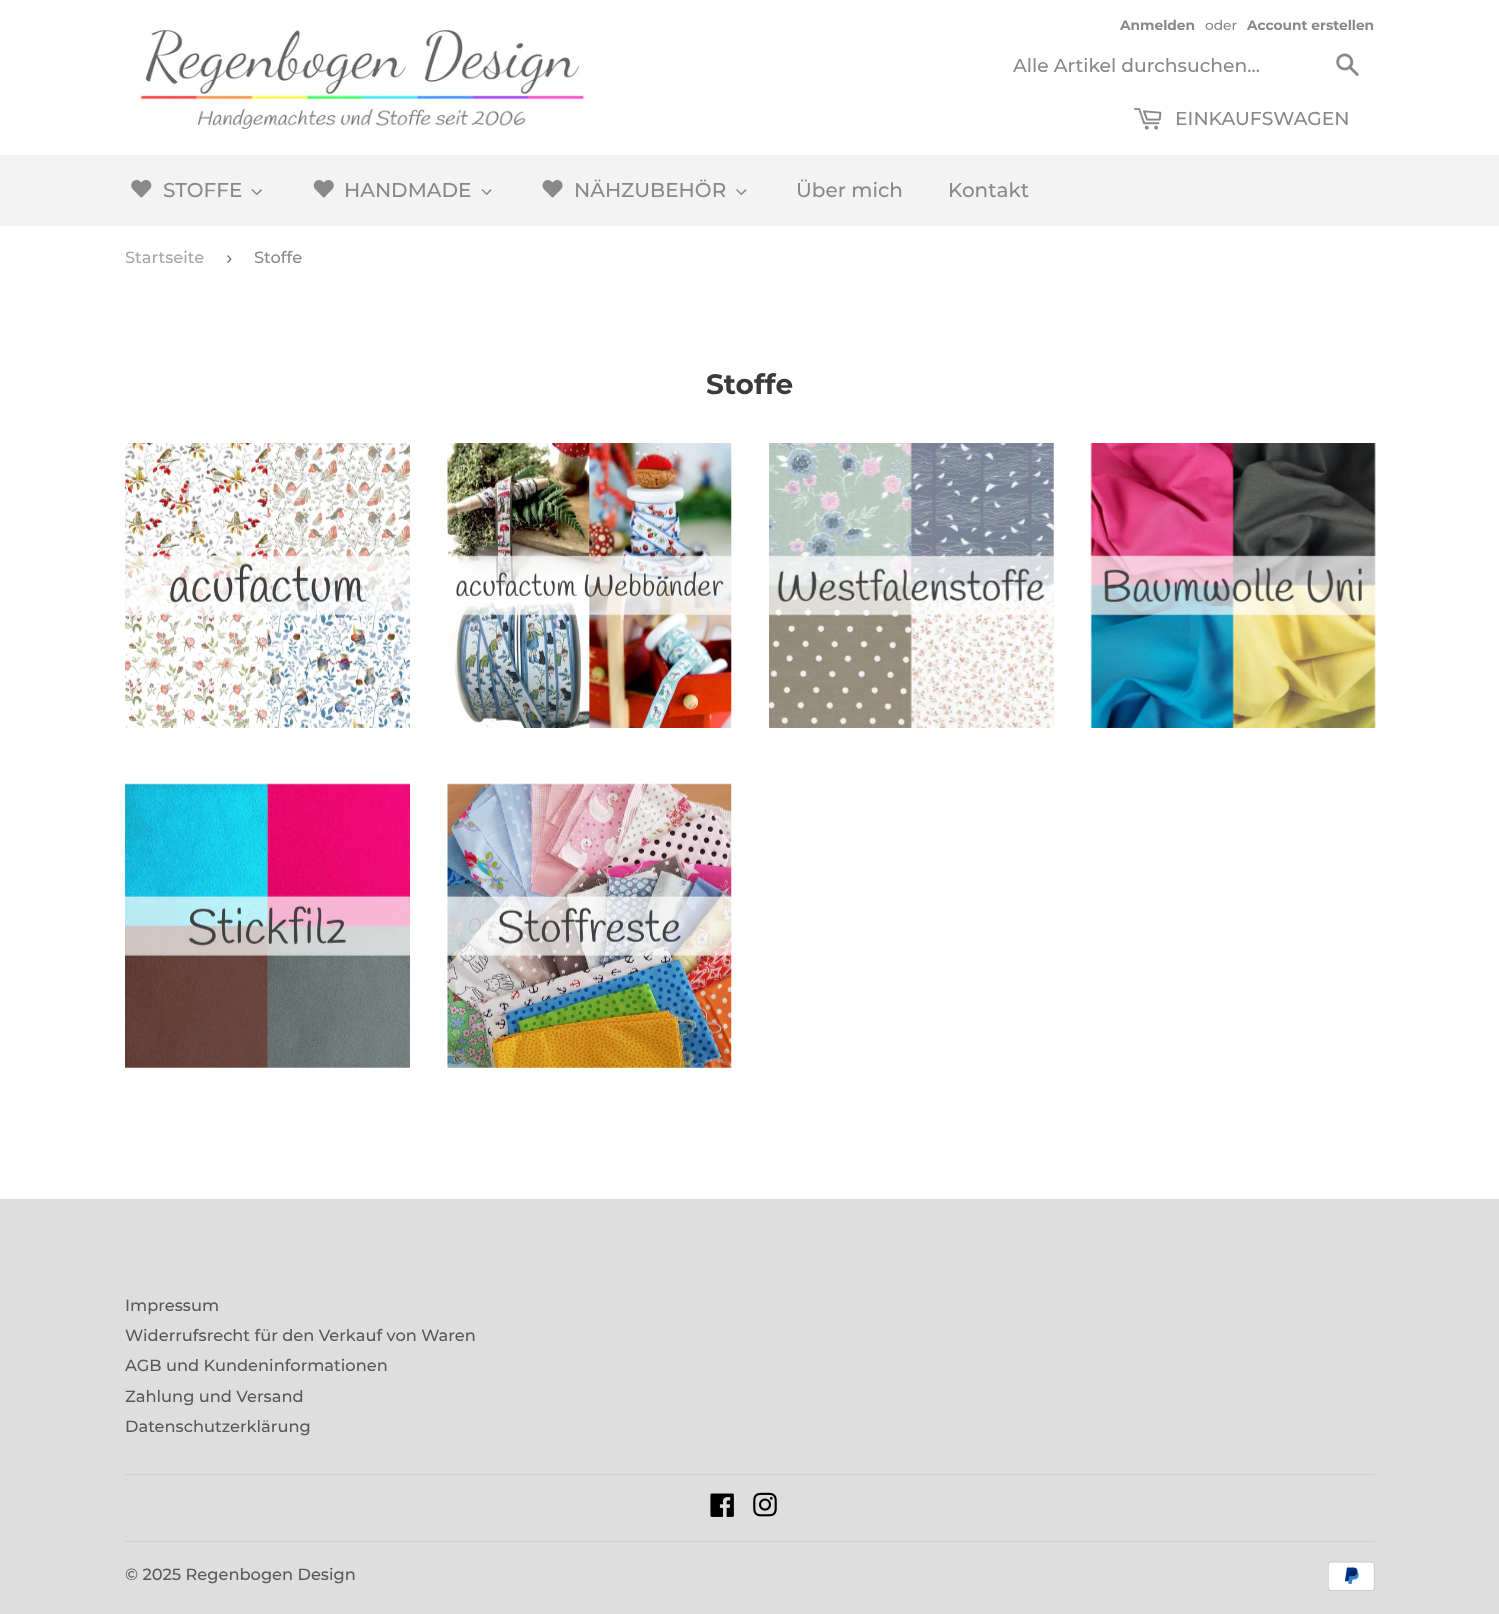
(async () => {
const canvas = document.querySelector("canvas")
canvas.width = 1499
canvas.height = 1614
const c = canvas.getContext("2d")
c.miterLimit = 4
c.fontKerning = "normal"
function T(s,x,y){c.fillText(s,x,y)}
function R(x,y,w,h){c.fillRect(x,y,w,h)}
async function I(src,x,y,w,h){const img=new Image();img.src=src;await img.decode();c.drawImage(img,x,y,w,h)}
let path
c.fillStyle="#fff"
R(0,0,1499,1614)
await I("1.png",139,30,447,99)
c.font="bold 13.75px Montserrat"
c.fillStyle="#898989"
T("Anmelden",1120,30)
c.font="500 13.75px Montserrat"
T("oder",1205,30)
c.font="bold 13.75px Montserrat"
T("Account erstellen",1247,30)
c.font="500 18.75px Montserrat"
T("Alle Artikel durchsuchen...",1013,72)
await I("2.png",1336,53,23,23)
await I("3.png",1134,108,28,22)
T("EINKAUFSWAGEN",1175,125)
c.fillStyle="#f3f3f3"
R(0,155,1499,71)
await I("4.png",131,180,21,18)
c.font="500 20px Montserrat"
c.fillStyle="#898989"
T("STOFFE",163,197)
path = new Path2D("M261 189l1 1.5l-5 4.5l-1-1z")
c.fill(path)
path = new Path2D("M252.5 189l5 5l-1 1l-5-5z")
c.fill(path)
await I("5.png",313,180,21,18)
T("HANDMADE",344,197)
path = new Path2D("M490.5 189l1 1.5l-4.5 4.5l-1-1z")
c.fill(path)
path = new Path2D("M482.5 189l5 5l-1 1l-5-5z")
c.fill(path)
await I("6.png",542,180,21,18)
T("NÄHZUBEHÖR",574,197)
path = new Path2D("M745.5 189l1 1.5l-5 4.5l-1-1z")
c.fill(path)
path = new Path2D("M737 189l5 5l-1 1l-5-5z")
c.fill(path)
T("Über mich",796,197)
T("Kontakt",948,197)
c.font="500 16.25px Montserrat"
c.fillStyle="#a6a6a6"
T("Startseite",125,263)
c.font="18.75px Liberation Sans"
c.fillStyle="#767676"
T("›",226,264)
c.font="500 16.25px Montserrat"
c.fillStyle="#898989"
T("Stoffe",254,263)
c.font="bold 28px Montserrat"
c.fillStyle="#3a3a3a"
T("Stoffe",706,394)
await I("7.png",125,443,285,285)
await I("8.png",447,443,285,285)
await I("9.png",769,443,285,285)
await I("10.png",1090,443,286,285)
await I("11.png",125,783,285,285)
await I("12.png",447,783,285,285)
c.fillStyle="#dedede"
R(0,1199,1499,415)
c.font="500 16.25px Montserrat"
c.fillStyle="#595959"
T("Impressum",125,1311)
T("Widerrufsrecht für den Verkauf von Waren",125,1341)
T("AGB und Kundeninformationen",125,1371)
T("Zahlung und Versand",125,1402)
T("Datenschutzerklärung",125,1432)
c.fillStyle="#d1d1d1"
R(125,1474,1250,1)
await I("13.png",710,1493,24,24)
await I("14.png",753,1492,24,25)
R(125,1541,1250,1)
c.fillStyle="#595959"
T("© 2025 Regenbogen Design",125,1580)
await I("15.png",1328,1561,47,30)
})()
